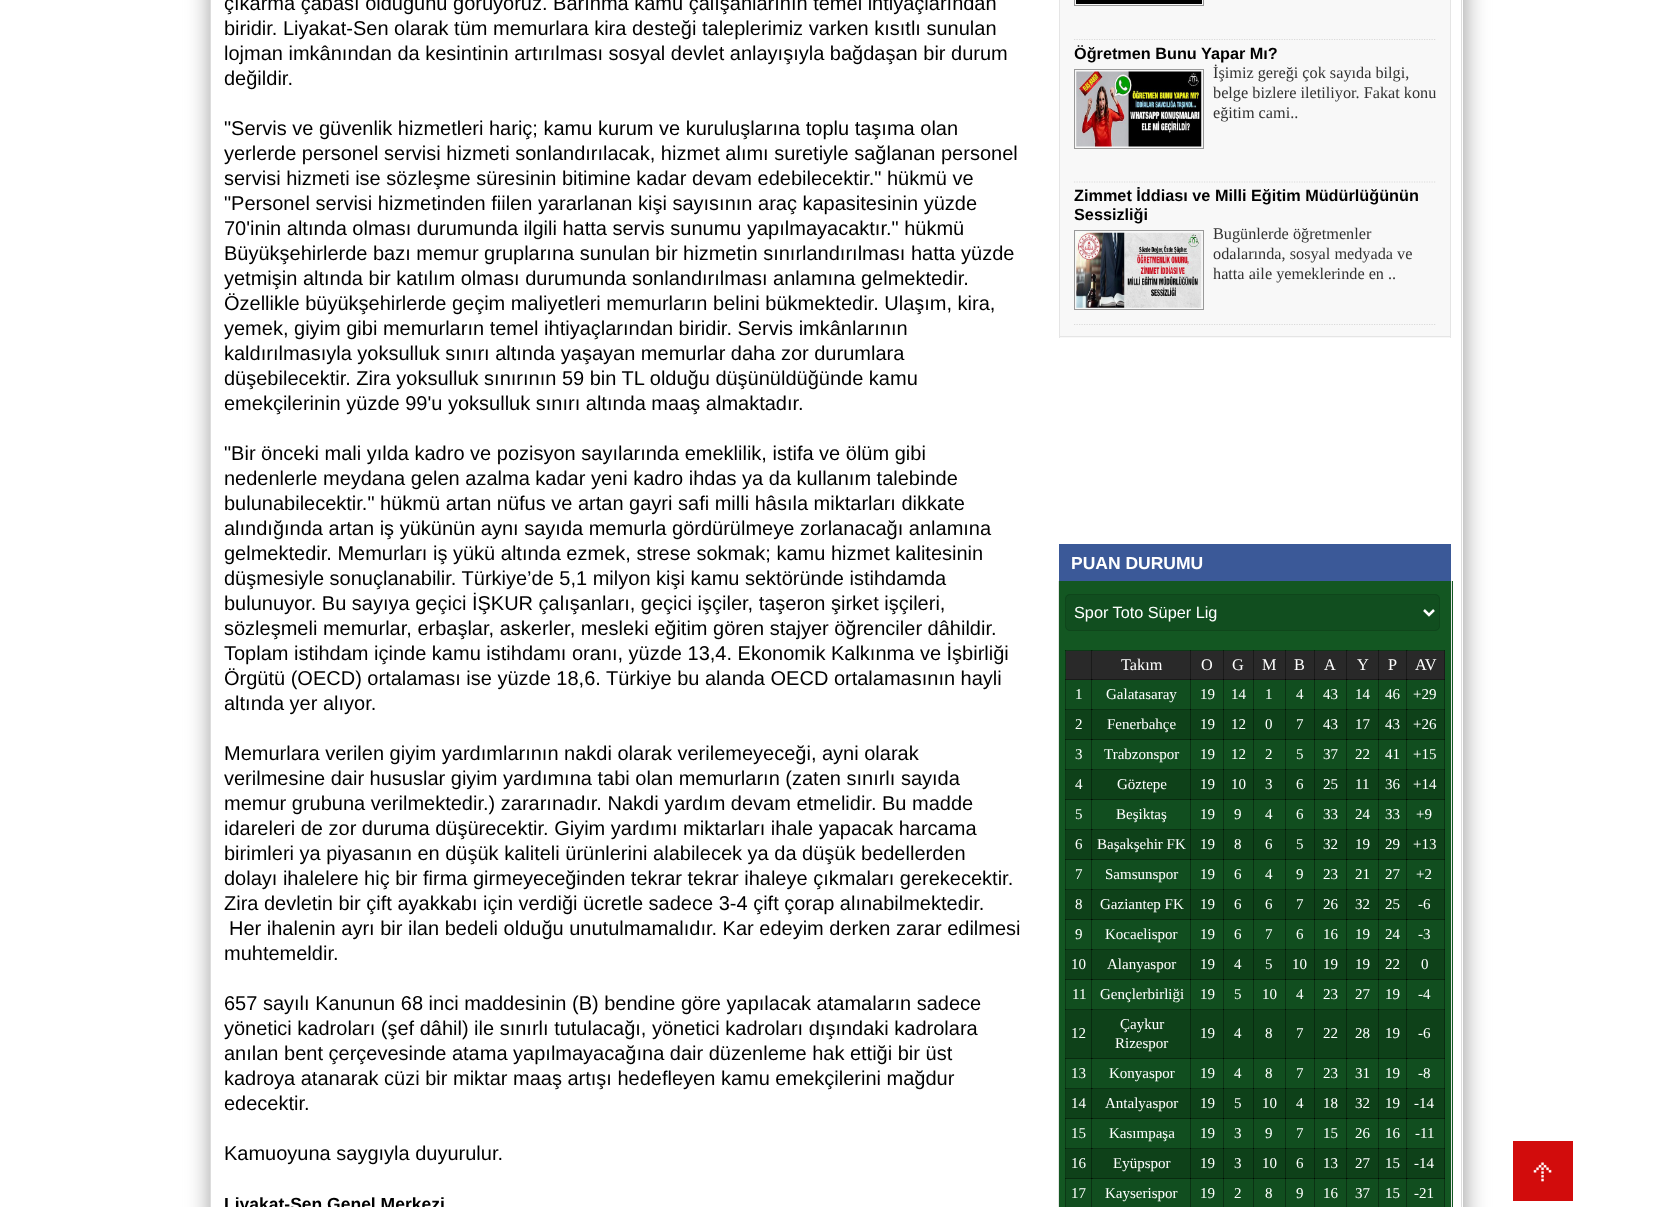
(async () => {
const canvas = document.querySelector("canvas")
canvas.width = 1672
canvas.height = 1207
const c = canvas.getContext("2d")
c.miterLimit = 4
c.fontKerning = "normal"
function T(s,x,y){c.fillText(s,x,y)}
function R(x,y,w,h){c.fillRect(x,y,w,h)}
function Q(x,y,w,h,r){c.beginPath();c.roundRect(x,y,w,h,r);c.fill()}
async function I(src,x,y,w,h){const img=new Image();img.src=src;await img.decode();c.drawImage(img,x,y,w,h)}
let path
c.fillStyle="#fff"
R(0,0,1672,1207)
c.fillStyle="#999"
c.filter="blur(12.5px)"
c.beginPath()
c.rect(211,-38,1253,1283)
c.fill()
c.filter="none"
c.fillStyle="#fff"
R(211,0,1252,1207)
c.fillStyle="#ddd"
R(1461,0,1,1207)
R(210,0,1,1207)
c.font="20px Liberation Sans"
c.fillStyle="#000"
T("çıkarma çabası olduğunu görüyoruz. Barınma kamu çalışanlarının temel ihtiyaçlarından",224,10)
T("biridir. Liyakat-Sen olarak tüm memurlara kira desteği taleplerimiz varken kısıtlı sunulan",224,35)
T("lojman imkânından da kesintinin artırılması sosyal devlet anlayışıyla bağdaşan bir durum",224,60)
T("değildir.",224,85)
T("\"Servis ve güvenlik hizmetleri hariç; kamu kurum ve kuruluşlarına toplu taşıma olan",224,135)
T("yerlerde personel servisi hizmeti sonlandırılacak, hizmet alımı suretiyle sağlanan personel",224,160)
T("servisi hizmeti ise sözleşme süresinin bitimine kadar devam edebilecektir.\" hükmü ve",224,185)
T("\"Personel servisi hizmetinden fiilen yararlanan kişi sayısının araç kapasitesinin yüzde",224,210)
T("70'inin altında olması durumunda ilgili hatta servis sunumu yapılmayacaktır.\" hükmü",224,235)
T("Büyükşehirlerde bazı memur gruplarına sunulan bir hizmetin sınırlandırılması hatta yüzde",224,260)
T("yetmişin altında bir katılım olması durumunda sonlandırılması anlamına gelmektedir.",224,285)
T("Özellikle büyükşehirlerde geçim maliyetleri memurların belini bükmektedir. Ulaşım, kira,",224,310)
T("yemek, giyim gibi memurların temel ihtiyaçlarından biridir. Servis imkânlarının",224,335)
T("kaldırılmasıyla yoksulluk sınırı altında yaşayan memurlar daha zor durumlara",224,360)
T("düşebilecektir. Zira yoksulluk sınırının 59 bin TL olduğu düşünüldüğünde kamu",224,385)
T("emekçilerinin yüzde 99'u yoksulluk sınırı altında maaş almaktadır.",224,410)
T("\"Bir önceki mali yılda kadro ve pozisyon sayılarında emeklilik, istifa ve ölüm gibi",224,460)
T("nedenlerle meydana gelen azalma kadar yeni kadro ihdas ya da kullanım talebinde",224,485)
T("bulunabilecektir.\" hükmü artan nüfus ve artan gayri safi milli hâsıla miktarları dikkate",224,510)
T("alındığında artan iş yükünün aynı sayıda memurla gördürülmeye zorlanacağı anlamına",224,535)
T("gelmektedir. Memurları iş yükü altında ezmek, strese sokmak; kamu hizmet kalitesinin",224,560)
T("düşmesiyle sonuçlanabilir. Türkiye’de 5,1 milyon kişi kamu sektöründe istihdamda",224,585)
T("bulunuyor. Bu sayıya geçici İŞKUR çalışanları, geçici işçiler, taşeron şirket işçileri,",224,610)
T("sözleşmeli memurlar, erbaşlar, askerler, mesleki eğitim gören stajyer öğrenciler dâhildir.",224,635)
T("Toplam istihdam içinde kamu istihdamı oranı, yüzde 13,4. Ekonomik Kalkınma ve İşbirliği",224,660)
T("Örgütü (OECD) ortalaması ise yüzde 18,6. Türkiye bu alanda OECD ortalamasının hayli",224,685)
T("altında yer alıyor.",224,710)
T("Memurlara verilen giyim yardımlarının nakdi olarak verilemeyeceği, ayni olarak",224,760)
T("verilmesine dair hususlar giyim yardımına tabi olan memurların (zaten sınırlı sayıda",224,785)
T("memur grubuna verilmektedir.) zararınadır. Nakdi yardım devam etmelidir. Bu madde",224,810)
T("idareleri de zor duruma düşürecektir. Giyim yardımı miktarları ihale yapacak harcama",224,835)
T("birimleri ya piyasanın en düşük kaliteli ürünlerini alabilecek ya da düşük bedellerden",224,860)
T("dolayı ihalelere hiç bir firma girmeyeceğinden tekrar tekrar ihaleye çıkmaları gerekecektir.",224,885)
T("Zira devletin bir çift ayakkabı için verdiği ücretle sadece 3-4 çift çorap alınabilmektedir.",224,910)
T("Her ihalenin ayrı bir ilan bedeli olduğu unutulmamalıdır. Kar edeyim derken zarar edilmesi",229,935)
T("muhtemeldir.",224,960)
T("657 sayılı Kanunun 68 inci maddesinin (B) bendine göre yapılacak atamaların sadece",224,1010)
T("yönetici kadroları (şef dâhil) ile sınırlı tutulacağı, yönetici kadroları dışındaki kadrolara",224,1035)
T("anılan bent çerçevesinde atama yapılmayacağına dair düzenleme hak ettiği bir üst",224,1060)
T("kadroya atanarak cüzi bir miktar maaş artışı hedefleyen kamu emekçilerini mağdur",224,1085)
T("edecektir.",224,1110)
T("Kamuoyuna saygıyla duyurulur.",224,1160)
c.font="bold 17.5px Liberation Sans"
T("Liyakat-Sen Genel Merkezi",224,1210)
c.fillStyle="#f8f8f8"
R(1060,0,390,338)
c.fillStyle="#e5e5e5"
R(1450,0,1,338)
R(1059,336,392,1)
R(1059,0,1,338)
path = new Path2D("M1074 39.5h362")
c.strokeStyle="#dadada"
c.lineWidth=1.2
c.setLineDash([1.25,1.25])
c.stroke(path)
c.strokeStyle="#999"
c.lineWidth=1
c.setLineDash([])
c.strokeRect(1074.5,-.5,129,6)
c.fillStyle="#000"
R(1076,0,126,4)
path = new Path2D("M1074 182h362")
c.strokeStyle="#dadada"
c.lineWidth=1.2
c.setLineDash([1.25,1.25])
c.stroke(path)
c.font="bold 16.25px Liberation Sans"
T("Öğretmen Bunu Yapar Mı?",1074,59)
c.strokeStyle="#999"
c.lineWidth=1
c.setLineDash([])
c.strokeRect(1074.5,69.5,129,79)
await I("1.png",1076,71,126,76)
c.font="16.25px Liberation Serif"
c.fillStyle="#333"
T("İşimiz gereği çok sayıda bilgi,",1213,78)
T("belge bizlere iletiliyor. Fakat konu",1213,98)
T("eğitim cami..",1213,118)
path = new Path2D("M1074 324.5h362")
c.strokeStyle="#dadada"
c.lineWidth=1.2
c.setLineDash([1.25,1.25])
c.stroke(path)
c.font="bold 16.25px Liberation Sans"
c.fillStyle="#000"
T("Zimmet İddiası ve Milli Eğitim Müdürlüğünün",1074,201)
T("Sessizliği",1074,220)
c.strokeStyle="#999"
c.lineWidth=1
c.setLineDash([])
c.strokeRect(1074.5,230.5,129,79)
await I("2.png",1076,232,126,76)
c.font="16.25px Liberation Serif"
c.fillStyle="#333"
T("Bugünlerde öğretmenler",1213,239)
T("odalarında, sosyal medyada ve",1213,259)
T("hatta aile yemeklerinde en ..",1213,279)
c.fillStyle="#3b5998"
R(1059,544,392,37)
c.font="bold 17.5px Liberation Sans"
c.fillStyle="#fff"
T("PUAN DURUMU",1071,569)
c.fillStyle="#135722"
R(1059,581,394,626)
c.fillStyle="#0c3816"
R(1065,650,1,557)
c.fillStyle="#061d0b"
R(1065,679,1,1)
R(1065,709,1,1)
R(1065,739,1,1)
R(1065,769,1,1)
R(1065,799,1,1)
R(1065,829,1,1)
R(1065,859,1,1)
R(1065,889,1,1)
R(1065,919,1,1)
R(1065,949,1,1)
R(1065,979,1,1)
R(1065,1009,1,1)
R(1065,1058,1,1)
R(1065,1088,1,1)
R(1065,1118,1,1)
R(1065,1148,1,1)
R(1065,1178,1,1)
c.fillStyle="#e5e5e5"
R(1451,581,1,626)
R(1058,581,1,626)
c.fillStyle="#114e1f"
Q(1065,594,375,37,5)
c.beginPath()
c.roundRect(1065.5,594.5,374,36,4.5)
c.strokeStyle="#0000001a"
c.stroke()
path = new Path2D("M1424 610l5 5l5-5")
c.strokeStyle="#fff"
c.lineWidth=2.5
c.stroke(path)
c.font="16.25px Liberation Sans"
c.fillStyle="#fff"
T("Spor Toto Süper Lig",1074,618)
c.fillStyle="#0c3816"
R(1065,650,380,1)
c.fillStyle="#0a2d12"
R(1091,650,2,1)
c.fillStyle="#061d0b"
R(1091,650,1,1)
R(1190,650,1,1)
R(1223,650,1,1)
R(1253,650,1,1)
R(1285,650,1,1)
R(1314,650,1,1)
c.fillStyle="#0a2d12"
R(1346,650,2,1)
c.fillStyle="#061d0b"
R(1346,650,1,1)
R(1378,650,1,1)
c.fillStyle="#0a2d12"
R(1406,650,2,1)
c.fillStyle="#061d0b"
R(1406,650,1,1)
c.fillStyle="#08240e"
R(1065,650,1,1)
R(1444,650,1,1)
c.fillStyle="#292929"
R(1066,651,124,28)
c.fillStyle="#1a1a1a"
R(1091,651,1,29)
R(1066,679,27,1)
c.fillStyle="#111"
R(1091,679,2,1)
c.fillStyle="#070707"
R(1091,679,1,1)
c.fillStyle="#1a1a1a"
R(1190,651,1,29)
R(1093,679,98,1)
c.fillStyle="#070707"
R(1190,679,1,1)
c.font="16.25px Liberation Serif"
c.fillStyle="#fff"
T("Takım",1121,670)
c.fillStyle="#292929"
R(1191,651,32,28)
c.fillStyle="#1a1a1a"
R(1223,651,1,29)
R(1191,679,62,1)
c.fillStyle="#070707"
R(1223,679,1,1)
c.fillStyle="#fff"
T("O",1201,670)
c.fillStyle="#292929"
R(1224,651,29,28)
c.fillStyle="#fff"
T("G",1232,670)
c.fillStyle="#292929"
R(1254,651,31,28)
c.fillStyle="#1a1a1a"
R(1253,651,1,29)
R(1253,679,32,1)
c.fillStyle="#070707"
R(1253,679,1,1)
c.fillStyle="#fff"
T("M",1262,670)
c.fillStyle="#292929"
R(1286,651,28,28)
c.fillStyle="#1a1a1a"
R(1285,651,1,29)
R(1285,679,29,1)
c.fillStyle="#070707"
R(1285,679,1,1)
c.fillStyle="#fff"
T("B",1294,670)
c.fillStyle="#292929"
R(1315,651,31,28)
c.fillStyle="#1a1a1a"
R(1314,651,1,29)
R(1314,679,32,1)
c.fillStyle="#070707"
R(1314,679,1,1)
c.fillStyle="#fff"
T("A",1324,670)
c.fillStyle="#292929"
R(1347,651,31,28)
c.fillStyle="#1a1a1a"
R(1346,651,1,29)
R(1378,651,1,29)
R(1346,679,60,1)
c.fillStyle="#111"
R(1346,679,2,1)
c.fillStyle="#070707"
R(1346,679,1,1)
R(1378,679,1,1)
c.fillStyle="#fff"
T("Y",1357,670)
c.fillStyle="#292929"
R(1379,651,27,28)
c.fillStyle="#fff"
T("P",1388,670)
c.fillStyle="#292929"
R(1407,651,37,28)
c.fillStyle="#1a1a1a"
R(1406,651,1,29)
R(1406,679,39,1)
c.fillStyle="#111"
R(1406,679,2,1)
c.fillStyle="#070707"
R(1406,679,1,1)
c.fillStyle="#1a1a1a"
R(1444,651,1,29)
c.fillStyle="#0e0e0e"
R(1444,679,1,1)
c.fillStyle="#fff"
T("AV",1415,670)
c.fillStyle="#114e1f"
R(1066,680,124,29)
c.fillStyle="#0b3214"
R(1091,680,1,30)
R(1066,709,27,1)
c.fillStyle="#07200d"
R(1091,709,2,1)
c.fillStyle="#030e05"
R(1091,709,1,1)
c.font="15px Liberation Serif"
c.fillStyle="#fff"
T("1",1075,699)
c.fillStyle="#0b3214"
R(1190,680,1,30)
R(1093,709,98,1)
c.fillStyle="#030e05"
R(1190,709,1,1)
c.fillStyle="#fff"
T("Galatasaray",1106,699)
c.fillStyle="#114e1f"
R(1191,680,32,29)
c.fillStyle="#0b3214"
R(1223,680,1,30)
R(1191,709,62,1)
c.fillStyle="#030e05"
R(1223,709,1,1)
c.fillStyle="#fff"
T("19",1200,699)
c.fillStyle="#114e1f"
R(1224,680,29,29)
c.fillStyle="#fff"
T("14",1231,699)
c.fillStyle="#114e1f"
R(1254,680,31,29)
c.fillStyle="#0b3214"
R(1253,680,1,30)
R(1253,709,32,1)
c.fillStyle="#030e05"
R(1253,709,1,1)
c.fillStyle="#fff"
T("1",1265,699)
c.fillStyle="#114e1f"
R(1286,680,28,29)
c.fillStyle="#0b3214"
R(1285,680,1,30)
R(1285,709,29,1)
c.fillStyle="#030e05"
R(1285,709,1,1)
c.fillStyle="#fff"
T("4",1296,699)
c.fillStyle="#114e1f"
R(1315,680,31,29)
c.fillStyle="#0b3214"
R(1314,680,1,30)
R(1314,709,32,1)
c.fillStyle="#030e05"
R(1314,709,1,1)
c.fillStyle="#fff"
T("43",1323,699)
c.fillStyle="#114e1f"
R(1347,680,31,29)
c.fillStyle="#0b3214"
R(1346,680,1,30)
R(1378,680,1,30)
R(1346,709,60,1)
c.fillStyle="#07200d"
R(1346,709,2,1)
c.fillStyle="#030e05"
R(1346,709,1,1)
R(1378,709,1,1)
c.fillStyle="#fff"
T("14",1355,699)
c.fillStyle="#114e1f"
R(1379,680,27,29)
c.fillStyle="#fff"
T("46",1385,699)
c.fillStyle="#114e1f"
R(1407,680,37,29)
c.fillStyle="#0b3214"
R(1406,680,1,30)
R(1406,709,39,1)
c.fillStyle="#07200d"
R(1406,709,2,1)
c.fillStyle="#030e05"
R(1406,709,1,1)
c.fillStyle="#0b3214"
R(1444,680,1,30)
c.fillStyle="#061a0a"
R(1444,709,1,1)
c.fillStyle="#fff"
T("+29",1413,699)
c.fillStyle="#0e4119"
R(1066,710,124,29)
c.fillStyle="#092a10"
R(1091,710,1,30)
R(1066,739,27,1)
c.fillStyle="#061b0a"
R(1091,739,2,1)
c.fillStyle="#020b04"
R(1091,739,1,1)
c.fillStyle="#fff"
T("2",1075,729)
c.fillStyle="#092a10"
R(1190,710,1,30)
R(1093,739,98,1)
c.fillStyle="#020b04"
R(1190,739,1,1)
c.fillStyle="#fff"
T("Fenerbahçe",1107,729)
c.fillStyle="#0e4119"
R(1191,710,32,29)
c.fillStyle="#092a10"
R(1223,710,1,30)
R(1191,739,62,1)
c.fillStyle="#020b04"
R(1223,739,1,1)
c.fillStyle="#fff"
T("19",1200,729)
c.fillStyle="#0e4119"
R(1224,710,29,29)
c.fillStyle="#fff"
T("12",1231,729)
c.fillStyle="#0e4119"
R(1254,710,31,29)
c.fillStyle="#092a10"
R(1253,710,1,30)
R(1253,739,32,1)
c.fillStyle="#020b04"
R(1253,739,1,1)
c.fillStyle="#fff"
T("0",1265,729)
c.fillStyle="#0e4119"
R(1286,710,28,29)
c.fillStyle="#092a10"
R(1285,710,1,30)
R(1285,739,29,1)
c.fillStyle="#020b04"
R(1285,739,1,1)
c.fillStyle="#fff"
T("7",1296,729)
c.fillStyle="#0e4119"
R(1315,710,31,29)
c.fillStyle="#092a10"
R(1314,710,1,30)
R(1314,739,32,1)
c.fillStyle="#020b04"
R(1314,739,1,1)
c.fillStyle="#fff"
T("43",1323,729)
c.fillStyle="#0e4119"
R(1347,710,31,29)
c.fillStyle="#092a10"
R(1346,710,1,30)
R(1378,710,1,30)
R(1346,739,60,1)
c.fillStyle="#061b0a"
R(1346,739,2,1)
c.fillStyle="#020b04"
R(1346,739,1,1)
R(1378,739,1,1)
c.fillStyle="#fff"
T("17",1355,729)
c.fillStyle="#0e4119"
R(1379,710,27,29)
c.fillStyle="#fff"
T("43",1385,729)
c.fillStyle="#0e4119"
R(1407,710,37,29)
c.fillStyle="#092a10"
R(1406,710,1,30)
R(1406,739,39,1)
c.fillStyle="#061b0a"
R(1406,739,2,1)
c.fillStyle="#020b04"
R(1406,739,1,1)
c.fillStyle="#092a10"
R(1444,710,1,30)
c.fillStyle="#051608"
R(1444,739,1,1)
c.fillStyle="#fff"
T("+26",1413,729)
c.fillStyle="#114e1f"
R(1066,740,124,29)
c.fillStyle="#0b3214"
R(1091,740,1,30)
R(1066,769,27,1)
c.fillStyle="#07200d"
R(1091,769,2,1)
c.fillStyle="#030e05"
R(1091,769,1,1)
c.fillStyle="#fff"
T("3",1075,759)
c.fillStyle="#0b3214"
R(1190,740,1,30)
R(1093,769,98,1)
c.fillStyle="#030e05"
R(1190,769,1,1)
c.fillStyle="#fff"
T("Trabzonspor",1104,759)
c.fillStyle="#114e1f"
R(1191,740,32,29)
c.fillStyle="#0b3214"
R(1223,740,1,30)
R(1191,769,62,1)
c.fillStyle="#030e05"
R(1223,769,1,1)
c.fillStyle="#fff"
T("19",1200,759)
c.fillStyle="#114e1f"
R(1224,740,29,29)
c.fillStyle="#fff"
T("12",1231,759)
c.fillStyle="#114e1f"
R(1254,740,31,29)
c.fillStyle="#0b3214"
R(1253,740,1,30)
R(1253,769,32,1)
c.fillStyle="#030e05"
R(1253,769,1,1)
c.fillStyle="#fff"
T("2",1265,759)
c.fillStyle="#114e1f"
R(1286,740,28,29)
c.fillStyle="#0b3214"
R(1285,740,1,30)
R(1285,769,29,1)
c.fillStyle="#030e05"
R(1285,769,1,1)
c.fillStyle="#fff"
T("5",1296,759)
c.fillStyle="#114e1f"
R(1315,740,31,29)
c.fillStyle="#0b3214"
R(1314,740,1,30)
R(1314,769,32,1)
c.fillStyle="#030e05"
R(1314,769,1,1)
c.fillStyle="#fff"
T("37",1323,759)
c.fillStyle="#114e1f"
R(1347,740,31,29)
c.fillStyle="#0b3214"
R(1346,740,1,30)
R(1378,740,1,30)
R(1346,769,60,1)
c.fillStyle="#07200d"
R(1346,769,2,1)
c.fillStyle="#030e05"
R(1346,769,1,1)
R(1378,769,1,1)
c.fillStyle="#fff"
T("22",1355,759)
c.fillStyle="#114e1f"
R(1379,740,27,29)
c.fillStyle="#fff"
T("41",1385,759)
c.fillStyle="#114e1f"
R(1407,740,37,29)
c.fillStyle="#0b3214"
R(1406,740,1,30)
R(1406,769,39,1)
c.fillStyle="#07200d"
R(1406,769,2,1)
c.fillStyle="#030e05"
R(1406,769,1,1)
c.fillStyle="#0b3214"
R(1444,740,1,30)
c.fillStyle="#061a0a"
R(1444,769,1,1)
c.fillStyle="#fff"
T("+15",1413,759)
c.fillStyle="#0e4119"
R(1066,770,124,29)
c.fillStyle="#092a10"
R(1091,770,1,30)
R(1066,799,27,1)
c.fillStyle="#061b0a"
R(1091,799,2,1)
c.fillStyle="#020b04"
R(1091,799,1,1)
c.fillStyle="#fff"
T("4",1075,789)
c.fillStyle="#092a10"
R(1190,770,1,30)
R(1093,799,98,1)
c.fillStyle="#020b04"
R(1190,799,1,1)
c.fillStyle="#fff"
T("Göztepe",1117,789)
c.fillStyle="#0e4119"
R(1191,770,32,29)
c.fillStyle="#092a10"
R(1223,770,1,30)
R(1191,799,62,1)
c.fillStyle="#020b04"
R(1223,799,1,1)
c.fillStyle="#fff"
T("19",1200,789)
c.fillStyle="#0e4119"
R(1224,770,29,29)
c.fillStyle="#fff"
T("10",1231,789)
c.fillStyle="#0e4119"
R(1254,770,31,29)
c.fillStyle="#092a10"
R(1253,770,1,30)
R(1253,799,32,1)
c.fillStyle="#020b04"
R(1253,799,1,1)
c.fillStyle="#fff"
T("3",1265,789)
c.fillStyle="#0e4119"
R(1286,770,28,29)
c.fillStyle="#092a10"
R(1285,770,1,30)
R(1285,799,29,1)
c.fillStyle="#020b04"
R(1285,799,1,1)
c.fillStyle="#fff"
T("6",1296,789)
c.fillStyle="#0e4119"
R(1315,770,31,29)
c.fillStyle="#092a10"
R(1314,770,1,30)
R(1314,799,32,1)
c.fillStyle="#020b04"
R(1314,799,1,1)
c.fillStyle="#fff"
T("25",1323,789)
c.fillStyle="#0e4119"
R(1347,770,31,29)
c.fillStyle="#092a10"
R(1346,770,1,30)
R(1378,770,1,30)
R(1346,799,60,1)
c.fillStyle="#061b0a"
R(1346,799,2,1)
c.fillStyle="#020b04"
R(1346,799,1,1)
R(1378,799,1,1)
c.fillStyle="#fff"
T("11",1355,789)
c.fillStyle="#0e4119"
R(1379,770,27,29)
c.fillStyle="#fff"
T("36",1385,789)
c.fillStyle="#0e4119"
R(1407,770,37,29)
c.fillStyle="#092a10"
R(1406,770,1,30)
R(1406,799,39,1)
c.fillStyle="#061b0a"
R(1406,799,2,1)
c.fillStyle="#020b04"
R(1406,799,1,1)
c.fillStyle="#092a10"
R(1444,770,1,30)
c.fillStyle="#051608"
R(1444,799,1,1)
c.fillStyle="#fff"
T("+14",1413,789)
c.fillStyle="#114e1f"
R(1066,800,124,29)
c.fillStyle="#0b3214"
R(1091,800,1,30)
R(1066,829,27,1)
c.fillStyle="#07200d"
R(1091,829,2,1)
c.fillStyle="#030e05"
R(1091,829,1,1)
c.fillStyle="#fff"
T("5",1075,819)
c.fillStyle="#0b3214"
R(1190,800,1,30)
R(1093,829,98,1)
c.fillStyle="#030e05"
R(1190,829,1,1)
c.fillStyle="#fff"
T("Beşiktaş",1116,819)
c.fillStyle="#114e1f"
R(1191,800,32,29)
c.fillStyle="#0b3214"
R(1223,800,1,30)
R(1191,829,62,1)
c.fillStyle="#030e05"
R(1223,829,1,1)
c.fillStyle="#fff"
T("19",1200,819)
c.fillStyle="#114e1f"
R(1224,800,29,29)
c.fillStyle="#fff"
T("9",1234,819)
c.fillStyle="#114e1f"
R(1254,800,31,29)
c.fillStyle="#0b3214"
R(1253,800,1,30)
R(1253,829,32,1)
c.fillStyle="#030e05"
R(1253,829,1,1)
c.fillStyle="#fff"
T("4",1265,819)
c.fillStyle="#114e1f"
R(1286,800,28,29)
c.fillStyle="#0b3214"
R(1285,800,1,30)
R(1285,829,29,1)
c.fillStyle="#030e05"
R(1285,829,1,1)
c.fillStyle="#fff"
T("6",1296,819)
c.fillStyle="#114e1f"
R(1315,800,31,29)
c.fillStyle="#0b3214"
R(1314,800,1,30)
R(1314,829,32,1)
c.fillStyle="#030e05"
R(1314,829,1,1)
c.fillStyle="#fff"
T("33",1323,819)
c.fillStyle="#114e1f"
R(1347,800,31,29)
c.fillStyle="#0b3214"
R(1346,800,1,30)
R(1378,800,1,30)
R(1346,829,60,1)
c.fillStyle="#07200d"
R(1346,829,2,1)
c.fillStyle="#030e05"
R(1346,829,1,1)
R(1378,829,1,1)
c.fillStyle="#fff"
T("24",1355,819)
c.fillStyle="#114e1f"
R(1379,800,27,29)
c.fillStyle="#fff"
T("33",1385,819)
c.fillStyle="#114e1f"
R(1407,800,37,29)
c.fillStyle="#0b3214"
R(1406,800,1,30)
R(1406,829,39,1)
c.fillStyle="#07200d"
R(1406,829,2,1)
c.fillStyle="#030e05"
R(1406,829,1,1)
c.fillStyle="#0b3214"
R(1444,800,1,30)
c.fillStyle="#061a0a"
R(1444,829,1,1)
c.fillStyle="#fff"
T("+9",1416,819)
c.fillStyle="#0e4119"
R(1066,830,124,29)
c.fillStyle="#092a10"
R(1091,830,1,30)
R(1066,859,27,1)
c.fillStyle="#061b0a"
R(1091,859,2,1)
c.fillStyle="#020b04"
R(1091,859,1,1)
c.fillStyle="#fff"
T("6",1075,849)
c.fillStyle="#092a10"
R(1190,830,1,30)
R(1093,859,98,1)
c.fillStyle="#020b04"
R(1190,859,1,1)
c.fillStyle="#fff"
T("Başakşehir FK",1097,849)
c.fillStyle="#0e4119"
R(1191,830,32,29)
c.fillStyle="#092a10"
R(1223,830,1,30)
R(1191,859,62,1)
c.fillStyle="#020b04"
R(1223,859,1,1)
c.fillStyle="#fff"
T("19",1200,849)
c.fillStyle="#0e4119"
R(1224,830,29,29)
c.fillStyle="#fff"
T("8",1234,849)
c.fillStyle="#0e4119"
R(1254,830,31,29)
c.fillStyle="#092a10"
R(1253,830,1,30)
R(1253,859,32,1)
c.fillStyle="#020b04"
R(1253,859,1,1)
c.fillStyle="#fff"
T("6",1265,849)
c.fillStyle="#0e4119"
R(1286,830,28,29)
c.fillStyle="#092a10"
R(1285,830,1,30)
R(1285,859,29,1)
c.fillStyle="#020b04"
R(1285,859,1,1)
c.fillStyle="#fff"
T("5",1296,849)
c.fillStyle="#0e4119"
R(1315,830,31,29)
c.fillStyle="#092a10"
R(1314,830,1,30)
R(1314,859,32,1)
c.fillStyle="#020b04"
R(1314,859,1,1)
c.fillStyle="#fff"
T("32",1323,849)
c.fillStyle="#0e4119"
R(1347,830,31,29)
c.fillStyle="#092a10"
R(1346,830,1,30)
R(1378,830,1,30)
R(1346,859,60,1)
c.fillStyle="#061b0a"
R(1346,859,2,1)
c.fillStyle="#020b04"
R(1346,859,1,1)
R(1378,859,1,1)
c.fillStyle="#fff"
T("19",1355,849)
c.fillStyle="#0e4119"
R(1379,830,27,29)
c.fillStyle="#fff"
T("29",1385,849)
c.fillStyle="#0e4119"
R(1407,830,37,29)
c.fillStyle="#092a10"
R(1406,830,1,30)
R(1406,859,39,1)
c.fillStyle="#061b0a"
R(1406,859,2,1)
c.fillStyle="#020b04"
R(1406,859,1,1)
c.fillStyle="#092a10"
R(1444,830,1,30)
c.fillStyle="#051608"
R(1444,859,1,1)
c.fillStyle="#fff"
T("+13",1413,849)
c.fillStyle="#114e1f"
R(1066,860,124,29)
c.fillStyle="#0b3214"
R(1091,860,1,30)
R(1066,889,27,1)
c.fillStyle="#07200d"
R(1091,889,2,1)
c.fillStyle="#030e05"
R(1091,889,1,1)
c.fillStyle="#fff"
T("7",1075,879)
c.fillStyle="#0b3214"
R(1190,860,1,30)
R(1093,889,98,1)
c.fillStyle="#030e05"
R(1190,889,1,1)
c.fillStyle="#fff"
T("Samsunspor",1105,879)
c.fillStyle="#114e1f"
R(1191,860,32,29)
c.fillStyle="#0b3214"
R(1223,860,1,30)
R(1191,889,62,1)
c.fillStyle="#030e05"
R(1223,889,1,1)
c.fillStyle="#fff"
T("19",1200,879)
c.fillStyle="#114e1f"
R(1224,860,29,29)
c.fillStyle="#fff"
T("6",1234,879)
c.fillStyle="#114e1f"
R(1254,860,31,29)
c.fillStyle="#0b3214"
R(1253,860,1,30)
R(1253,889,32,1)
c.fillStyle="#030e05"
R(1253,889,1,1)
c.fillStyle="#fff"
T("4",1265,879)
c.fillStyle="#114e1f"
R(1286,860,28,29)
c.fillStyle="#0b3214"
R(1285,860,1,30)
R(1285,889,29,1)
c.fillStyle="#030e05"
R(1285,889,1,1)
c.fillStyle="#fff"
T("9",1296,879)
c.fillStyle="#114e1f"
R(1315,860,31,29)
c.fillStyle="#0b3214"
R(1314,860,1,30)
R(1314,889,32,1)
c.fillStyle="#030e05"
R(1314,889,1,1)
c.fillStyle="#fff"
T("23",1323,879)
c.fillStyle="#114e1f"
R(1347,860,31,29)
c.fillStyle="#0b3214"
R(1346,860,1,30)
R(1378,860,1,30)
R(1346,889,60,1)
c.fillStyle="#07200d"
R(1346,889,2,1)
c.fillStyle="#030e05"
R(1346,889,1,1)
R(1378,889,1,1)
c.fillStyle="#fff"
T("21",1355,879)
c.fillStyle="#114e1f"
R(1379,860,27,29)
c.fillStyle="#fff"
T("27",1385,879)
c.fillStyle="#114e1f"
R(1407,860,37,29)
c.fillStyle="#0b3214"
R(1406,860,1,30)
R(1406,889,39,1)
c.fillStyle="#07200d"
R(1406,889,2,1)
c.fillStyle="#030e05"
R(1406,889,1,1)
c.fillStyle="#0b3214"
R(1444,860,1,30)
c.fillStyle="#061a0a"
R(1444,889,1,1)
c.fillStyle="#fff"
T("+2",1416,879)
c.fillStyle="#0e4119"
R(1066,890,124,29)
c.fillStyle="#092a10"
R(1091,890,1,30)
R(1066,919,27,1)
c.fillStyle="#061b0a"
R(1091,919,2,1)
c.fillStyle="#020b04"
R(1091,919,1,1)
c.fillStyle="#fff"
T("8",1075,909)
c.fillStyle="#092a10"
R(1190,890,1,30)
R(1093,919,98,1)
c.fillStyle="#020b04"
R(1190,919,1,1)
c.fillStyle="#fff"
T("Gaziantep FK",1100,909)
c.fillStyle="#0e4119"
R(1191,890,32,29)
c.fillStyle="#092a10"
R(1223,890,1,30)
R(1191,919,62,1)
c.fillStyle="#020b04"
R(1223,919,1,1)
c.fillStyle="#fff"
T("19",1200,909)
c.fillStyle="#0e4119"
R(1224,890,29,29)
c.fillStyle="#fff"
T("6",1234,909)
c.fillStyle="#0e4119"
R(1254,890,31,29)
c.fillStyle="#092a10"
R(1253,890,1,30)
R(1253,919,32,1)
c.fillStyle="#020b04"
R(1253,919,1,1)
c.fillStyle="#fff"
T("6",1265,909)
c.fillStyle="#0e4119"
R(1286,890,28,29)
c.fillStyle="#092a10"
R(1285,890,1,30)
R(1285,919,29,1)
c.fillStyle="#020b04"
R(1285,919,1,1)
c.fillStyle="#fff"
T("7",1296,909)
c.fillStyle="#0e4119"
R(1315,890,31,29)
c.fillStyle="#092a10"
R(1314,890,1,30)
R(1314,919,32,1)
c.fillStyle="#020b04"
R(1314,919,1,1)
c.fillStyle="#fff"
T("26",1323,909)
c.fillStyle="#0e4119"
R(1347,890,31,29)
c.fillStyle="#092a10"
R(1346,890,1,30)
R(1378,890,1,30)
R(1346,919,60,1)
c.fillStyle="#061b0a"
R(1346,919,2,1)
c.fillStyle="#020b04"
R(1346,919,1,1)
R(1378,919,1,1)
c.fillStyle="#fff"
T("32",1355,909)
c.fillStyle="#0e4119"
R(1379,890,27,29)
c.fillStyle="#fff"
T("25",1385,909)
c.fillStyle="#0e4119"
R(1407,890,37,29)
c.fillStyle="#092a10"
R(1406,890,1,30)
R(1406,919,39,1)
c.fillStyle="#061b0a"
R(1406,919,2,1)
c.fillStyle="#020b04"
R(1406,919,1,1)
c.fillStyle="#092a10"
R(1444,890,1,30)
c.fillStyle="#051608"
R(1444,919,1,1)
c.fillStyle="#fff"
T("-6",1418,909)
c.fillStyle="#114e1f"
R(1066,920,124,29)
c.fillStyle="#0b3214"
R(1091,920,1,30)
R(1066,949,27,1)
c.fillStyle="#07200d"
R(1091,949,2,1)
c.fillStyle="#030e05"
R(1091,949,1,1)
c.fillStyle="#fff"
T("9",1075,939)
c.fillStyle="#0b3214"
R(1190,920,1,30)
R(1093,949,98,1)
c.fillStyle="#030e05"
R(1190,949,1,1)
c.fillStyle="#fff"
T("Kocaelispor",1105,939)
c.fillStyle="#114e1f"
R(1191,920,32,29)
c.fillStyle="#0b3214"
R(1223,920,1,30)
R(1191,949,62,1)
c.fillStyle="#030e05"
R(1223,949,1,1)
c.fillStyle="#fff"
T("19",1200,939)
c.fillStyle="#114e1f"
R(1224,920,29,29)
c.fillStyle="#fff"
T("6",1234,939)
c.fillStyle="#114e1f"
R(1254,920,31,29)
c.fillStyle="#0b3214"
R(1253,920,1,30)
R(1253,949,32,1)
c.fillStyle="#030e05"
R(1253,949,1,1)
c.fillStyle="#fff"
T("7",1265,939)
c.fillStyle="#114e1f"
R(1286,920,28,29)
c.fillStyle="#0b3214"
R(1285,920,1,30)
R(1285,949,29,1)
c.fillStyle="#030e05"
R(1285,949,1,1)
c.fillStyle="#fff"
T("6",1296,939)
c.fillStyle="#114e1f"
R(1315,920,31,29)
c.fillStyle="#0b3214"
R(1314,920,1,30)
R(1314,949,32,1)
c.fillStyle="#030e05"
R(1314,949,1,1)
c.fillStyle="#fff"
T("16",1323,939)
c.fillStyle="#114e1f"
R(1347,920,31,29)
c.fillStyle="#0b3214"
R(1346,920,1,30)
R(1378,920,1,30)
R(1346,949,60,1)
c.fillStyle="#07200d"
R(1346,949,2,1)
c.fillStyle="#030e05"
R(1346,949,1,1)
R(1378,949,1,1)
c.fillStyle="#fff"
T("19",1355,939)
c.fillStyle="#114e1f"
R(1379,920,27,29)
c.fillStyle="#fff"
T("24",1385,939)
c.fillStyle="#114e1f"
R(1407,920,37,29)
c.fillStyle="#0b3214"
R(1406,920,1,30)
R(1406,949,39,1)
c.fillStyle="#07200d"
R(1406,949,2,1)
c.fillStyle="#030e05"
R(1406,949,1,1)
c.fillStyle="#0b3214"
R(1444,920,1,30)
c.fillStyle="#061a0a"
R(1444,949,1,1)
c.fillStyle="#fff"
T("-3",1418,939)
c.fillStyle="#0e4119"
R(1066,950,124,29)
c.fillStyle="#092a10"
R(1091,950,1,30)
R(1066,979,27,1)
c.fillStyle="#061b0a"
R(1091,979,2,1)
c.fillStyle="#020b04"
R(1091,979,1,1)
c.fillStyle="#fff"
T("10",1071,969)
c.fillStyle="#092a10"
R(1190,950,1,30)
R(1093,979,98,1)
c.fillStyle="#020b04"
R(1190,979,1,1)
c.fillStyle="#fff"
T("Alanyaspor",1107,969)
c.fillStyle="#0e4119"
R(1191,950,32,29)
c.fillStyle="#092a10"
R(1223,950,1,30)
R(1191,979,62,1)
c.fillStyle="#020b04"
R(1223,979,1,1)
c.fillStyle="#fff"
T("19",1200,969)
c.fillStyle="#0e4119"
R(1224,950,29,29)
c.fillStyle="#fff"
T("4",1234,969)
c.fillStyle="#0e4119"
R(1254,950,31,29)
c.fillStyle="#092a10"
R(1253,950,1,30)
R(1253,979,32,1)
c.fillStyle="#020b04"
R(1253,979,1,1)
c.fillStyle="#fff"
T("5",1265,969)
c.fillStyle="#0e4119"
R(1286,950,28,29)
c.fillStyle="#092a10"
R(1285,950,1,30)
R(1285,979,29,1)
c.fillStyle="#020b04"
R(1285,979,1,1)
c.fillStyle="#fff"
T("10",1292,969)
c.fillStyle="#0e4119"
R(1315,950,31,29)
c.fillStyle="#092a10"
R(1314,950,1,30)
R(1314,979,32,1)
c.fillStyle="#020b04"
R(1314,979,1,1)
c.fillStyle="#fff"
T("19",1323,969)
c.fillStyle="#0e4119"
R(1347,950,31,29)
c.fillStyle="#092a10"
R(1346,950,1,30)
R(1378,950,1,30)
R(1346,979,60,1)
c.fillStyle="#061b0a"
R(1346,979,2,1)
c.fillStyle="#020b04"
R(1346,979,1,1)
R(1378,979,1,1)
c.fillStyle="#fff"
T("19",1355,969)
c.fillStyle="#0e4119"
R(1379,950,27,29)
c.fillStyle="#fff"
T("22",1385,969)
c.fillStyle="#0e4119"
R(1407,950,37,29)
c.fillStyle="#092a10"
R(1406,950,1,30)
R(1406,979,39,1)
c.fillStyle="#061b0a"
R(1406,979,2,1)
c.fillStyle="#020b04"
R(1406,979,1,1)
c.fillStyle="#092a10"
R(1444,950,1,30)
c.fillStyle="#051608"
R(1444,979,1,1)
c.fillStyle="#fff"
T("0",1421,969)
c.fillStyle="#114e1f"
R(1066,980,124,29)
c.fillStyle="#0b3214"
R(1091,980,1,30)
R(1066,1009,27,1)
c.fillStyle="#07200d"
R(1091,1009,2,1)
c.fillStyle="#030e05"
R(1091,1009,1,1)
c.fillStyle="#fff"
T("11",1072,999)
c.fillStyle="#0b3214"
R(1190,980,1,30)
R(1093,1009,98,1)
c.fillStyle="#030e05"
R(1190,1009,1,1)
c.fillStyle="#fff"
T("Gençlerbirliği",1100,999)
c.fillStyle="#114e1f"
R(1191,980,32,29)
c.fillStyle="#0b3214"
R(1223,980,1,30)
R(1191,1009,62,1)
c.fillStyle="#030e05"
R(1223,1009,1,1)
c.fillStyle="#fff"
T("19",1200,999)
c.fillStyle="#114e1f"
R(1224,980,29,29)
c.fillStyle="#fff"
T("5",1234,999)
c.fillStyle="#114e1f"
R(1254,980,31,29)
c.fillStyle="#0b3214"
R(1253,980,1,30)
R(1253,1009,32,1)
c.fillStyle="#030e05"
R(1253,1009,1,1)
c.fillStyle="#fff"
T("10",1262,999)
c.fillStyle="#114e1f"
R(1286,980,28,29)
c.fillStyle="#0b3214"
R(1285,980,1,30)
R(1285,1009,29,1)
c.fillStyle="#030e05"
R(1285,1009,1,1)
c.fillStyle="#fff"
T("4",1296,999)
c.fillStyle="#114e1f"
R(1315,980,31,29)
c.fillStyle="#0b3214"
R(1314,980,1,30)
R(1314,1009,32,1)
c.fillStyle="#030e05"
R(1314,1009,1,1)
c.fillStyle="#fff"
T("23",1323,999)
c.fillStyle="#114e1f"
R(1347,980,31,29)
c.fillStyle="#0b3214"
R(1346,980,1,30)
R(1378,980,1,30)
R(1346,1009,60,1)
c.fillStyle="#07200d"
R(1346,1009,2,1)
c.fillStyle="#030e05"
R(1346,1009,1,1)
R(1378,1009,1,1)
c.fillStyle="#fff"
T("27",1355,999)
c.fillStyle="#114e1f"
R(1379,980,27,29)
c.fillStyle="#fff"
T("19",1385,999)
c.fillStyle="#114e1f"
R(1407,980,37,29)
c.fillStyle="#0b3214"
R(1406,980,1,30)
R(1406,1009,39,1)
c.fillStyle="#07200d"
R(1406,1009,2,1)
c.fillStyle="#030e05"
R(1406,1009,1,1)
c.fillStyle="#0b3214"
R(1444,980,1,30)
c.fillStyle="#061a0a"
R(1444,1009,1,1)
c.fillStyle="#fff"
T("-4",1418,999)
c.fillStyle="#0e4119"
R(1066,1010,124,48)
c.fillStyle="#092a10"
R(1091,1010,1,49)
R(1066,1058,27,1)
c.fillStyle="#061b0a"
R(1091,1058,2,1)
c.fillStyle="#020b04"
R(1091,1058,1,1)
c.fillStyle="#fff"
T("12",1071,1038)
c.fillStyle="#092a10"
R(1190,1010,1,49)
R(1093,1058,98,1)
c.fillStyle="#020b04"
R(1190,1058,1,1)
c.fillStyle="#fff"
T("Çaykur",1120,1029)
T("Rizespor",1115,1048)
c.fillStyle="#0e4119"
R(1191,1010,32,48)
c.fillStyle="#092a10"
R(1223,1010,1,49)
R(1191,1058,62,1)
c.fillStyle="#020b04"
R(1223,1058,1,1)
c.fillStyle="#fff"
T("19",1200,1038)
c.fillStyle="#0e4119"
R(1224,1010,29,48)
c.fillStyle="#fff"
T("4",1234,1038)
c.fillStyle="#0e4119"
R(1254,1010,31,48)
c.fillStyle="#092a10"
R(1253,1010,1,49)
R(1253,1058,32,1)
c.fillStyle="#020b04"
R(1253,1058,1,1)
c.fillStyle="#fff"
T("8",1265,1038)
c.fillStyle="#0e4119"
R(1286,1010,28,48)
c.fillStyle="#092a10"
R(1285,1010,1,49)
R(1285,1058,29,1)
c.fillStyle="#020b04"
R(1285,1058,1,1)
c.fillStyle="#fff"
T("7",1296,1038)
c.fillStyle="#0e4119"
R(1315,1010,31,48)
c.fillStyle="#092a10"
R(1314,1010,1,49)
R(1314,1058,32,1)
c.fillStyle="#020b04"
R(1314,1058,1,1)
c.fillStyle="#fff"
T("22",1323,1038)
c.fillStyle="#0e4119"
R(1347,1010,31,48)
c.fillStyle="#092a10"
R(1346,1010,1,49)
R(1378,1010,1,49)
R(1346,1058,60,1)
c.fillStyle="#061b0a"
R(1346,1058,2,1)
c.fillStyle="#020b04"
R(1346,1058,1,1)
R(1378,1058,1,1)
c.fillStyle="#fff"
T("28",1355,1038)
c.fillStyle="#0e4119"
R(1379,1010,27,48)
c.fillStyle="#fff"
T("19",1385,1038)
c.fillStyle="#0e4119"
R(1407,1010,37,48)
c.fillStyle="#092a10"
R(1406,1010,1,49)
R(1406,1058,39,1)
c.fillStyle="#061b0a"
R(1406,1058,2,1)
c.fillStyle="#020b04"
R(1406,1058,1,1)
c.fillStyle="#092a10"
R(1444,1010,1,49)
c.fillStyle="#051608"
R(1444,1058,1,1)
c.fillStyle="#fff"
T("-6",1418,1038)
c.fillStyle="#114e1f"
R(1066,1059,124,29)
c.fillStyle="#0b3214"
R(1091,1059,1,30)
R(1066,1088,27,1)
c.fillStyle="#07200d"
R(1091,1088,2,1)
c.fillStyle="#030e05"
R(1091,1088,1,1)
c.fillStyle="#fff"
T("13",1071,1078)
c.fillStyle="#0b3214"
R(1190,1059,1,30)
R(1093,1088,98,1)
c.fillStyle="#030e05"
R(1190,1088,1,1)
c.fillStyle="#fff"
T("Konyaspor",1109,1078)
c.fillStyle="#114e1f"
R(1191,1059,32,29)
c.fillStyle="#0b3214"
R(1223,1059,1,30)
R(1191,1088,62,1)
c.fillStyle="#030e05"
R(1223,1088,1,1)
c.fillStyle="#fff"
T("19",1200,1078)
c.fillStyle="#114e1f"
R(1224,1059,29,29)
c.fillStyle="#fff"
T("4",1234,1078)
c.fillStyle="#114e1f"
R(1254,1059,31,29)
c.fillStyle="#0b3214"
R(1253,1059,1,30)
R(1253,1088,32,1)
c.fillStyle="#030e05"
R(1253,1088,1,1)
c.fillStyle="#fff"
T("8",1265,1078)
c.fillStyle="#114e1f"
R(1286,1059,28,29)
c.fillStyle="#0b3214"
R(1285,1059,1,30)
R(1285,1088,29,1)
c.fillStyle="#030e05"
R(1285,1088,1,1)
c.fillStyle="#fff"
T("7",1296,1078)
c.fillStyle="#114e1f"
R(1315,1059,31,29)
c.fillStyle="#0b3214"
R(1314,1059,1,30)
R(1314,1088,32,1)
c.fillStyle="#030e05"
R(1314,1088,1,1)
c.fillStyle="#fff"
T("23",1323,1078)
c.fillStyle="#114e1f"
R(1347,1059,31,29)
c.fillStyle="#0b3214"
R(1346,1059,1,30)
R(1378,1059,1,30)
R(1346,1088,60,1)
c.fillStyle="#07200d"
R(1346,1088,2,1)
c.fillStyle="#030e05"
R(1346,1088,1,1)
R(1378,1088,1,1)
c.fillStyle="#fff"
T("31",1355,1078)
c.fillStyle="#114e1f"
R(1379,1059,27,29)
c.fillStyle="#fff"
T("19",1385,1078)
c.fillStyle="#114e1f"
R(1407,1059,37,29)
c.fillStyle="#0b3214"
R(1406,1059,1,30)
R(1406,1088,39,1)
c.fillStyle="#07200d"
R(1406,1088,2,1)
c.fillStyle="#030e05"
R(1406,1088,1,1)
c.fillStyle="#0b3214"
R(1444,1059,1,30)
c.fillStyle="#061a0a"
R(1444,1088,1,1)
c.fillStyle="#fff"
T("-8",1418,1078)
c.fillStyle="#0e4119"
R(1066,1089,124,29)
c.fillStyle="#092a10"
R(1091,1089,1,30)
R(1066,1118,27,1)
c.fillStyle="#061b0a"
R(1091,1118,2,1)
c.fillStyle="#020b04"
R(1091,1118,1,1)
c.fillStyle="#fff"
T("14",1071,1108)
c.fillStyle="#092a10"
R(1190,1089,1,30)
R(1093,1118,98,1)
c.fillStyle="#020b04"
R(1190,1118,1,1)
c.fillStyle="#fff"
T("Antalyaspor",1105,1108)
c.fillStyle="#0e4119"
R(1191,1089,32,29)
c.fillStyle="#092a10"
R(1223,1089,1,30)
R(1191,1118,62,1)
c.fillStyle="#020b04"
R(1223,1118,1,1)
c.fillStyle="#fff"
T("19",1200,1108)
c.fillStyle="#0e4119"
R(1224,1089,29,29)
c.fillStyle="#fff"
T("5",1234,1108)
c.fillStyle="#0e4119"
R(1254,1089,31,29)
c.fillStyle="#092a10"
R(1253,1089,1,30)
R(1253,1118,32,1)
c.fillStyle="#020b04"
R(1253,1118,1,1)
c.fillStyle="#fff"
T("10",1262,1108)
c.fillStyle="#0e4119"
R(1286,1089,28,29)
c.fillStyle="#092a10"
R(1285,1089,1,30)
R(1285,1118,29,1)
c.fillStyle="#020b04"
R(1285,1118,1,1)
c.fillStyle="#fff"
T("4",1296,1108)
c.fillStyle="#0e4119"
R(1315,1089,31,29)
c.fillStyle="#092a10"
R(1314,1089,1,30)
R(1314,1118,32,1)
c.fillStyle="#020b04"
R(1314,1118,1,1)
c.fillStyle="#fff"
T("18",1323,1108)
c.fillStyle="#0e4119"
R(1347,1089,31,29)
c.fillStyle="#092a10"
R(1346,1089,1,30)
R(1378,1089,1,30)
R(1346,1118,60,1)
c.fillStyle="#061b0a"
R(1346,1118,2,1)
c.fillStyle="#020b04"
R(1346,1118,1,1)
R(1378,1118,1,1)
c.fillStyle="#fff"
T("32",1355,1108)
c.fillStyle="#0e4119"
R(1379,1089,27,29)
c.fillStyle="#fff"
T("19",1385,1108)
c.fillStyle="#0e4119"
R(1407,1089,37,29)
c.fillStyle="#092a10"
R(1406,1089,1,30)
R(1406,1118,39,1)
c.fillStyle="#061b0a"
R(1406,1118,2,1)
c.fillStyle="#020b04"
R(1406,1118,1,1)
c.fillStyle="#092a10"
R(1444,1089,1,30)
c.fillStyle="#051608"
R(1444,1118,1,1)
c.fillStyle="#fff"
T("-14",1414,1108)
c.fillStyle="#114e1f"
R(1066,1119,124,29)
c.fillStyle="#0b3214"
R(1091,1119,1,30)
R(1066,1148,27,1)
c.fillStyle="#07200d"
R(1091,1148,2,1)
c.fillStyle="#030e05"
R(1091,1148,1,1)
c.fillStyle="#fff"
T("15",1071,1138)
c.fillStyle="#0b3214"
R(1190,1119,1,30)
R(1093,1148,98,1)
c.fillStyle="#030e05"
R(1190,1148,1,1)
c.fillStyle="#fff"
T("Kasımpaşa",1109,1138)
c.fillStyle="#114e1f"
R(1191,1119,32,29)
c.fillStyle="#0b3214"
R(1223,1119,1,30)
R(1191,1148,62,1)
c.fillStyle="#030e05"
R(1223,1148,1,1)
c.fillStyle="#fff"
T("19",1200,1138)
c.fillStyle="#114e1f"
R(1224,1119,29,29)
c.fillStyle="#fff"
T("3",1234,1138)
c.fillStyle="#114e1f"
R(1254,1119,31,29)
c.fillStyle="#0b3214"
R(1253,1119,1,30)
R(1253,1148,32,1)
c.fillStyle="#030e05"
R(1253,1148,1,1)
c.fillStyle="#fff"
T("9",1265,1138)
c.fillStyle="#114e1f"
R(1286,1119,28,29)
c.fillStyle="#0b3214"
R(1285,1119,1,30)
R(1285,1148,29,1)
c.fillStyle="#030e05"
R(1285,1148,1,1)
c.fillStyle="#fff"
T("7",1296,1138)
c.fillStyle="#114e1f"
R(1315,1119,31,29)
c.fillStyle="#0b3214"
R(1314,1119,1,30)
R(1314,1148,32,1)
c.fillStyle="#030e05"
R(1314,1148,1,1)
c.fillStyle="#fff"
T("15",1323,1138)
c.fillStyle="#114e1f"
R(1347,1119,31,29)
c.fillStyle="#0b3214"
R(1346,1119,1,30)
R(1378,1119,1,30)
R(1346,1148,60,1)
c.fillStyle="#07200d"
R(1346,1148,2,1)
c.fillStyle="#030e05"
R(1346,1148,1,1)
R(1378,1148,1,1)
c.fillStyle="#fff"
T("26",1355,1138)
c.fillStyle="#114e1f"
R(1379,1119,27,29)
c.fillStyle="#fff"
T("16",1385,1138)
c.fillStyle="#114e1f"
R(1407,1119,37,29)
c.fillStyle="#0b3214"
R(1406,1119,1,30)
R(1406,1148,39,1)
c.fillStyle="#07200d"
R(1406,1148,2,1)
c.fillStyle="#030e05"
R(1406,1148,1,1)
c.fillStyle="#0b3214"
R(1444,1119,1,30)
c.fillStyle="#061a0a"
R(1444,1148,1,1)
c.fillStyle="#fff"
T("-11",1415,1138)
c.fillStyle="#0e4119"
R(1066,1149,124,29)
c.fillStyle="#092a10"
R(1091,1149,1,30)
R(1066,1178,27,1)
c.fillStyle="#061b0a"
R(1091,1178,2,1)
c.fillStyle="#020b04"
R(1091,1178,1,1)
c.fillStyle="#fff"
T("16",1071,1168)
c.fillStyle="#092a10"
R(1190,1149,1,30)
R(1093,1178,98,1)
c.fillStyle="#020b04"
R(1190,1178,1,1)
c.fillStyle="#fff"
T("Eyüpspor",1113,1168)
c.fillStyle="#0e4119"
R(1191,1149,32,29)
c.fillStyle="#092a10"
R(1223,1149,1,30)
R(1191,1178,62,1)
c.fillStyle="#020b04"
R(1223,1178,1,1)
c.fillStyle="#fff"
T("19",1200,1168)
c.fillStyle="#0e4119"
R(1224,1149,29,29)
c.fillStyle="#fff"
T("3",1234,1168)
c.fillStyle="#0e4119"
R(1254,1149,31,29)
c.fillStyle="#092a10"
R(1253,1149,1,30)
R(1253,1178,32,1)
c.fillStyle="#020b04"
R(1253,1178,1,1)
c.fillStyle="#fff"
T("10",1262,1168)
c.fillStyle="#0e4119"
R(1286,1149,28,29)
c.fillStyle="#092a10"
R(1285,1149,1,30)
R(1285,1178,29,1)
c.fillStyle="#020b04"
R(1285,1178,1,1)
c.fillStyle="#fff"
T("6",1296,1168)
c.fillStyle="#0e4119"
R(1315,1149,31,29)
c.fillStyle="#092a10"
R(1314,1149,1,30)
R(1314,1178,32,1)
c.fillStyle="#020b04"
R(1314,1178,1,1)
c.fillStyle="#fff"
T("13",1323,1168)
c.fillStyle="#0e4119"
R(1347,1149,31,29)
c.fillStyle="#092a10"
R(1346,1149,1,30)
R(1378,1149,1,30)
R(1346,1178,60,1)
c.fillStyle="#061b0a"
R(1346,1178,2,1)
c.fillStyle="#020b04"
R(1346,1178,1,1)
R(1378,1178,1,1)
c.fillStyle="#fff"
T("27",1355,1168)
c.fillStyle="#0e4119"
R(1379,1149,27,29)
c.fillStyle="#fff"
T("15",1385,1168)
c.fillStyle="#0e4119"
R(1407,1149,37,29)
c.fillStyle="#092a10"
R(1406,1149,1,30)
R(1406,1178,39,1)
c.fillStyle="#061b0a"
R(1406,1178,2,1)
c.fillStyle="#020b04"
R(1406,1178,1,1)
c.fillStyle="#092a10"
R(1444,1149,1,30)
c.fillStyle="#051608"
R(1444,1178,1,1)
c.fillStyle="#fff"
T("-14",1414,1168)
c.fillStyle="#114e1f"
R(1066,1179,124,28)
c.fillStyle="#0b3214"
R(1091,1179,1,28)
c.fillStyle="#fff"
T("17",1071,1198)
c.fillStyle="#0b3214"
R(1190,1179,1,28)
c.fillStyle="#fff"
T("Kayserispor",1105,1198)
c.fillStyle="#114e1f"
R(1191,1179,32,28)
c.fillStyle="#0b3214"
R(1223,1179,1,28)
c.fillStyle="#fff"
T("19",1200,1198)
c.fillStyle="#114e1f"
R(1224,1179,29,28)
c.fillStyle="#fff"
T("2",1234,1198)
c.fillStyle="#114e1f"
R(1254,1179,31,28)
c.fillStyle="#0b3214"
R(1253,1179,1,28)
c.fillStyle="#fff"
T("8",1265,1198)
c.fillStyle="#114e1f"
R(1286,1179,28,28)
c.fillStyle="#0b3214"
R(1285,1179,1,28)
c.fillStyle="#fff"
T("9",1296,1198)
c.fillStyle="#114e1f"
R(1315,1179,31,28)
c.fillStyle="#0b3214"
R(1314,1179,1,28)
c.fillStyle="#fff"
T("16",1323,1198)
c.fillStyle="#114e1f"
R(1347,1179,31,28)
c.fillStyle="#0b3214"
R(1346,1179,1,28)
R(1378,1179,1,28)
c.fillStyle="#fff"
T("37",1355,1198)
c.fillStyle="#114e1f"
R(1379,1179,27,28)
c.fillStyle="#fff"
T("15",1385,1198)
c.fillStyle="#114e1f"
R(1407,1179,37,28)
c.fillStyle="#0b3214"
R(1406,1179,1,28)
R(1444,1179,1,28)
c.fillStyle="#fff"
T("-21",1414,1198)
c.fillStyle="#d20c0c"
R(1513,1141,60,60)
await I("3.png",1533,1162,19,20)
})()
